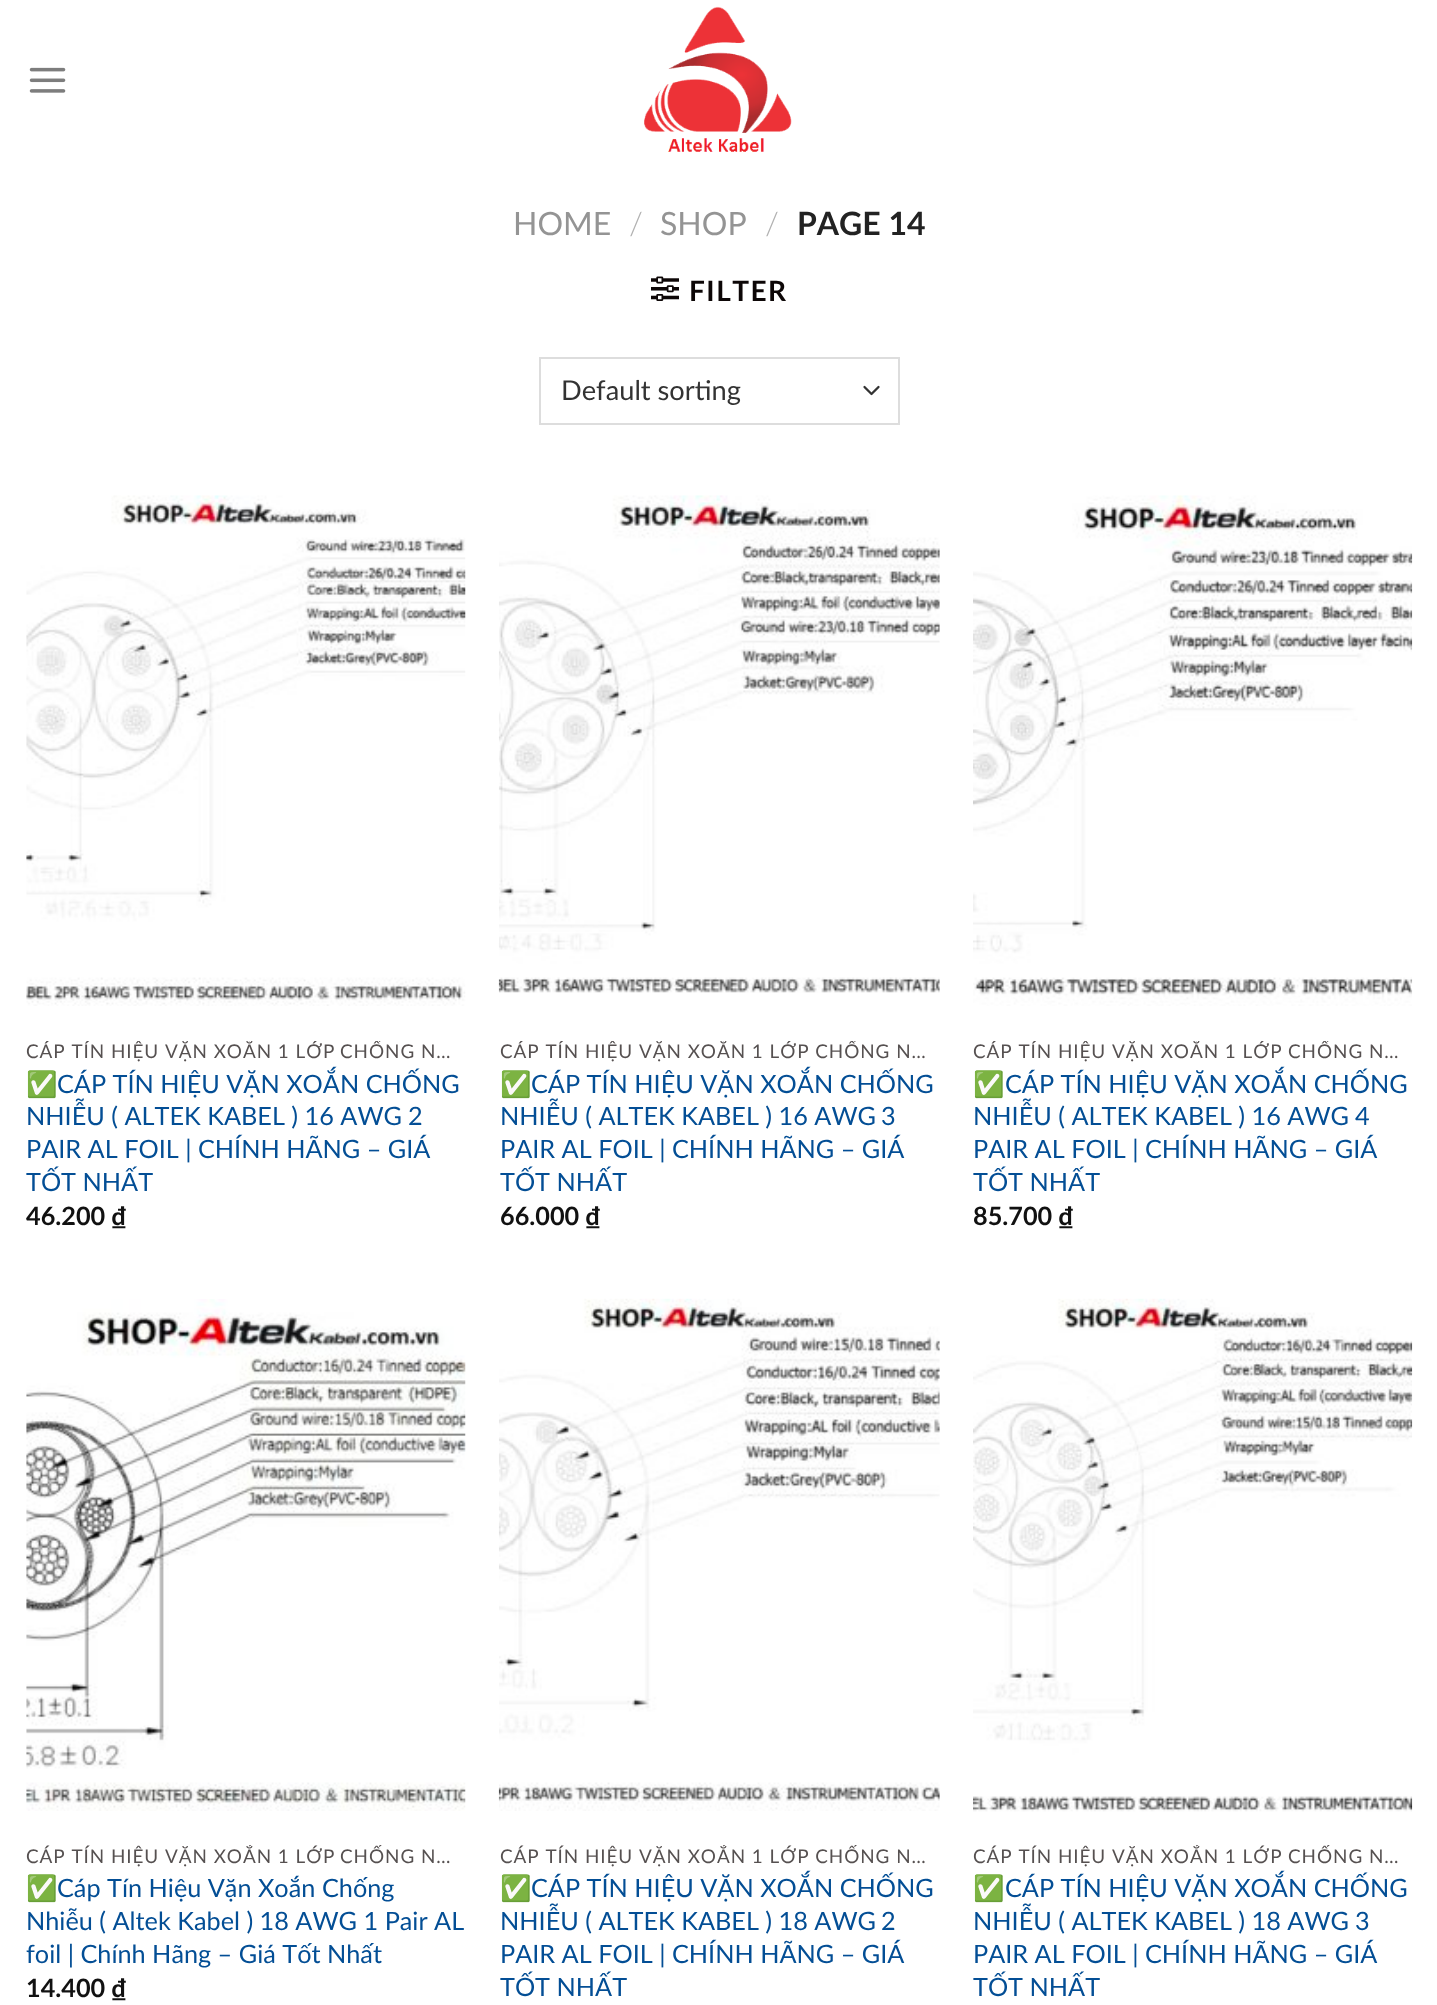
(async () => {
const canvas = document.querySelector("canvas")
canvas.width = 1437
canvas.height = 2005
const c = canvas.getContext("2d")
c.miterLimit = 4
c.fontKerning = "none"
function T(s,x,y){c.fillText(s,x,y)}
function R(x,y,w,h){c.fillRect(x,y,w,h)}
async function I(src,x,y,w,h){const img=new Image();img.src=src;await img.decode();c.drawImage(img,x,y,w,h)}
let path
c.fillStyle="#fff"
R(0,0,1437,2005)
await I("1.png",29,67,37,26)
await I("2.png",644,6,148,146)
c.font="32px Lato"
c.fillStyle="#949494"
T("HOME",513,235)
c.font="300 32px Lato"
c.fillStyle="#b2b2b2"
T("/",629,235)
c.font="32px Lato"
c.fillStyle="#949494"
T("SHOP",660,235)
c.font="300 32px Lato"
c.fillStyle="#b2b2b2"
T("/",765,235)
c.font="bold 32px Lato"
c.fillStyle="#222"
T("PAGE 14",797,235)
await I("3.png",651,276,28,25)
c.letterSpacing="1.5px"
c.font="bold 28px Lato"
c.fillStyle="#0d0707"
T("FILTER",689,301)
path = new Path2D("M864.5 387l7 7l7-7")
c.strokeStyle="#333"
c.lineWidth=2.3
c.lineCap="round"
c.lineJoin="round"
c.stroke(path)
c.strokeStyle="#ddd"
c.lineWidth=2
c.lineJoin="miter"
c.strokeRect(540,358,359,66)
c.letterSpacing="0px"
c.font="27.25px Lato"
c.fillStyle="#333"
T("Default sorting",561,400)
await I("4.png",26,495,440,511)
c.save()
c.beginPath()
c.rect(26,1041,440,23)
c.clip()
c.letterSpacing="0.95px"
c.font="18.9px Lato"
c.fillStyle="#565151"
T("CÁP TÍN HIỆU VẶN XOẮN 1 LỚP",26,1058)
T("CHỐNG N…",340,1058)
c.restore()
c.font="25.25px Noto Color Emoji"
c.fillStyle="#034e95"
T("✅",26,1093)
c.font="25.25px Lato"
T("CÁP TÍN HIỆU VẶN XOẮN CHỐNG",57,1093)
T("NHIỄU ( ALTEK KABEL ) 16 AWG",26,1125)
T("2",408,1125)
T("PAIR AL FOIL | CHÍNH HÃNG – GIÁ",26,1158)
T("TỐT NHẤT",26,1191)
c.font="bold 25.25px Lato"
c.fillStyle="#111"
T("46.200 ₫",26,1225)
await I("5.png",498,495,442,498)
c.save()
c.beginPath()
c.rect(499,1041,441,23)
c.clip()
c.letterSpacing="0.95px"
c.font="18.9px Lato"
c.fillStyle="#565151"
T("CÁP TÍN HIỆU VẶN XOẮN 1 LỚP CHỐNG N…",500,1058)
c.restore()
c.font="25.25px Noto Color Emoji"
c.fillStyle="#034e95"
T("✅",500,1093)
c.font="25.25px Lato"
T("CÁP TÍN HIỆU VẶN XOẮN CHỐNG",531,1093)
T("NHIỄU ( ALTEK KABEL ) 16 AWG",500,1125)
T("3",881,1125)
T("PAIR AL FOIL | CHÍNH HÃNG – GIÁ",500,1158)
T("TỐT NHẤT",500,1191)
c.font="bold 25.25px Lato"
c.fillStyle="#111"
T("66.000 ₫",500,1225)
await I("6.png",973,495,440,511)
c.save()
c.beginPath()
c.rect(973,1041,439,23)
c.clip()
c.letterSpacing="0.95px"
c.font="18.9px Lato"
c.fillStyle="#565151"
T("CÁP TÍN HIỆU VẶN XOẮN 1 LỚP",973,1058)
T("CHỐNG N…",1288,1058)
c.restore()
c.font="25.25px Noto Color Emoji"
c.fillStyle="#034e95"
T("✅",973,1093)
c.font="25.25px Lato"
T("CÁP TÍN HIỆU VẶN XOẮN CHỐNG",1005,1093)
T("NHIỄU ( ALTEK KABEL ) 16 AWG",973,1125)
T("4",1355,1125)
T("PAIR AL FOIL | CHÍNH HÃNG – GIÁ",973,1158)
T("TỐT NHẤT",973,1191)
c.font="bold 25.25px Lato"
c.fillStyle="#111"
T("85.700 ₫",973,1225)
await I("7.png",26,1299,440,512)
c.save()
c.beginPath()
c.rect(26,1845,440,22)
c.clip()
c.letterSpacing="0.95px"
c.font="18.9px Lato"
c.fillStyle="#565151"
T("CÁP TÍN HIỆU VẶN XOẮN 1 LỚP",26,1863)
T("CHỐNG N…",340,1863)
c.restore()
c.font="25.25px Noto Color Emoji"
c.fillStyle="#034e95"
T("✅",26,1897)
c.font="25.25px Lato"
T("Cáp Tín Hiệu Vặn Xoắn",57,1897)
T("Chống",322,1897)
T("Nhiễu ( Altek Kabel ) 18 AWG 1 Pair AL",26,1930)
T("foil | Chính Hãng – Giá Tốt Nhất",26,1963)
c.font="bold 25.25px Lato"
c.fillStyle="#111"
T("14.400 ₫",26,1997)
await I("8.png",498,1298,442,513)
c.save()
c.beginPath()
c.rect(499,1845,441,22)
c.clip()
c.letterSpacing="0.95px"
c.font="18.9px Lato"
c.fillStyle="#565151"
T("CÁP TÍN HIỆU VẶN XOẮN 1 LỚP CHỐNG N…",500,1863)
c.restore()
c.font="25.25px Noto Color Emoji"
c.fillStyle="#034e95"
T("✅",500,1897)
c.font="25.25px Lato"
T("CÁP TÍN HIỆU VẶN XOẮN CHỐNG",531,1897)
T("NHIỄU ( ALTEK KABEL ) 18 AWG",500,1930)
T("2",881,1930)
T("PAIR AL FOIL | CHÍNH HÃNG – GIÁ",500,1963)
T("TỐT NHẤT",500,1996)
await I("9.png",973,1298,440,514)
c.save()
c.beginPath()
c.rect(973,1845,439,22)
c.clip()
c.letterSpacing="0.95px"
c.font="18.9px Lato"
c.fillStyle="#565151"
T("CÁP TÍN HIỆU VẶN XOẮN 1 LỚP",973,1863)
T("CHỐNG N…",1288,1863)
c.restore()
c.font="25.25px Noto Color Emoji"
T("✅",973,1897)
c.font="25.25px Lato"
T("CÁP TÍN HIỆU VẶN XOẮN CHỐNG",1005,1897)
T("NHIỄU ( ALTEK KABEL ) 18 AWG",973,1930)
T("3",1355,1930)
T("PAIR AL FOIL | CHÍNH HÃNG – GIÁ",973,1963)
T("TỐT NHẤT",973,1996)
})()
